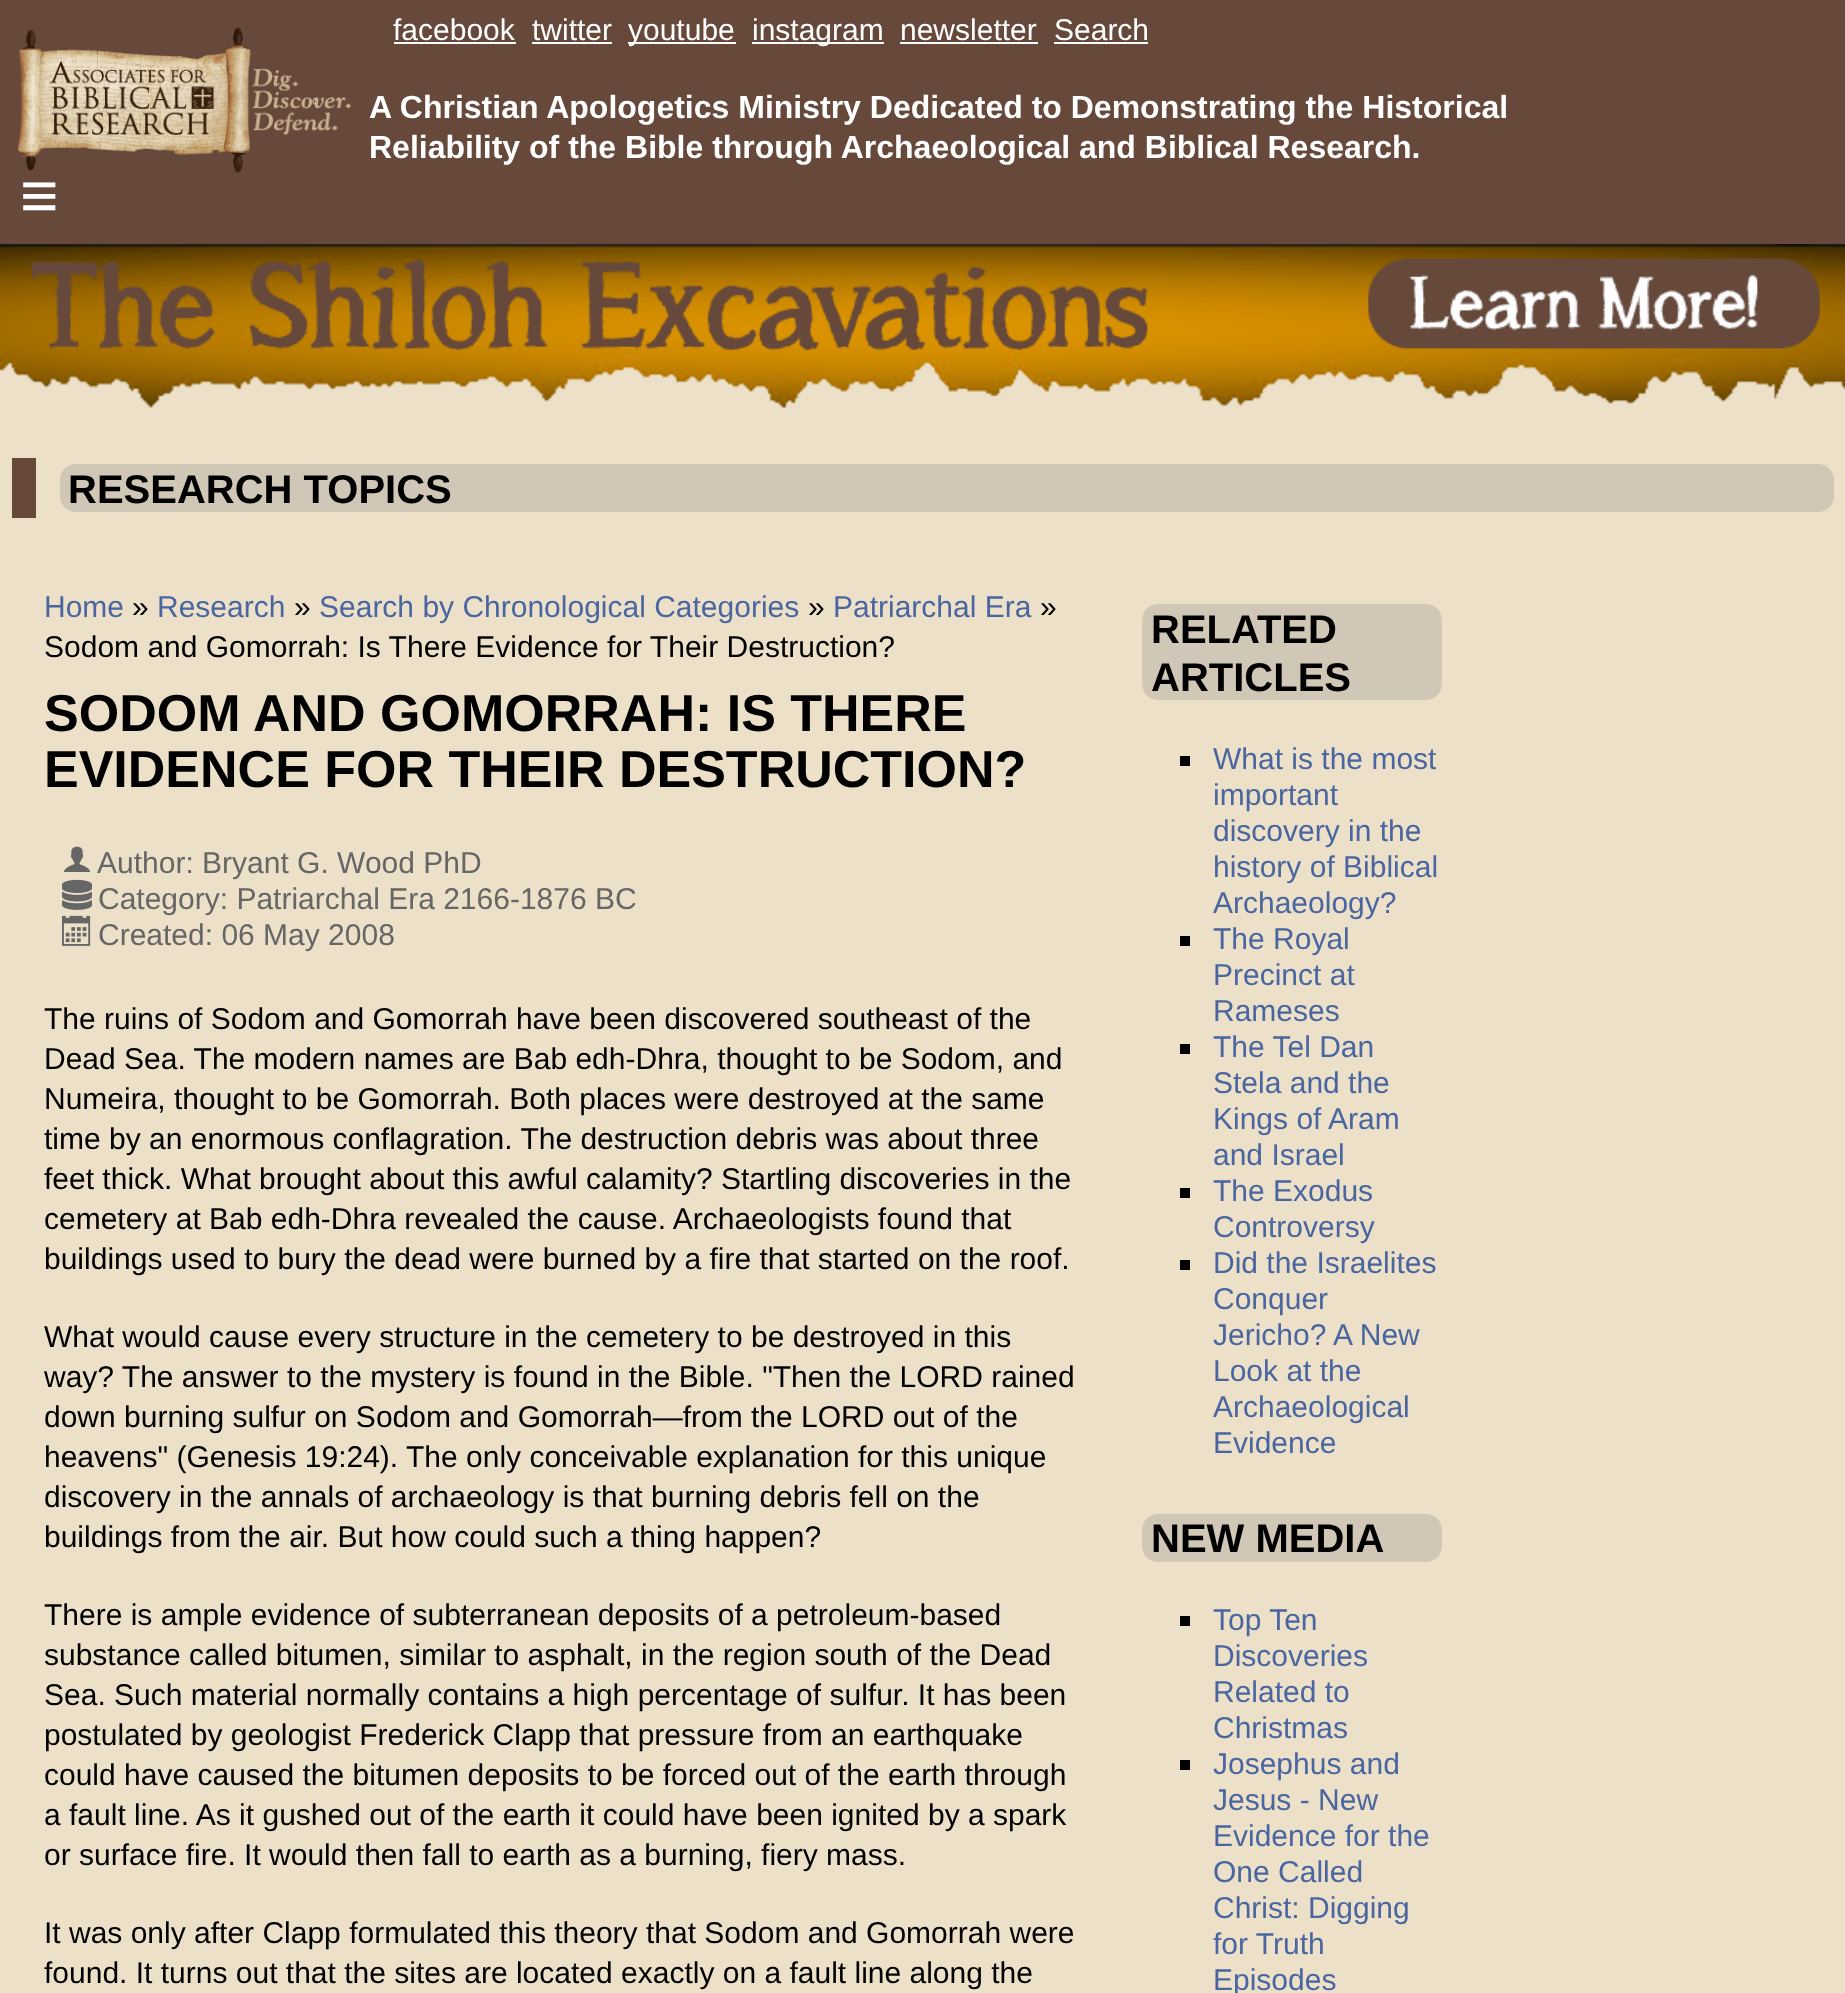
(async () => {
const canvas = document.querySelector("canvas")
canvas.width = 1845
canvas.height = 1993
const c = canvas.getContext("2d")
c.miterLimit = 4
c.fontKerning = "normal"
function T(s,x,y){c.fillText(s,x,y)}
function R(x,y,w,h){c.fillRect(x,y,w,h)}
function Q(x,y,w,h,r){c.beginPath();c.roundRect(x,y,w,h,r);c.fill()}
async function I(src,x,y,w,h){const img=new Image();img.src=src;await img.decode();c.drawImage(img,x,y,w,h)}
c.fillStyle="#66493b"
R(0,0,1845,1993)
c.font="30px Liberation Sans"
c.fillStyle="#fff"
T("facebook",393,40)
R(394,42,122,2)
T("twitter",532,40)
R(532,42,80,2)
R(628,42,108,2)
T("youtube",628,40)
R(752,42,132,2)
T("instagram",752,40)
T("newsletter",900,40)
R(900,42,138,2)
T("Search",1054,40)
R(1054,42,94,2)
c.font="bold 32px Liberation Sans"
T("A Christian Apologetics Ministry Dedicated to Demonstrating the Historical",369,118)
T("Reliability of the Bible through Archaeological and Biblical Research.",369,158)
await I("1.png",18,27,333,146)
c.font="66px Liberation Sans"
T("≡",20,218)
c.fillStyle="#ece0c8"
R(0,244,1845,1749)
await I("2.png",0,244,1845,165)
await I("3.png",30,258,1790,93)
c.fillStyle="#66493b"
R(12,458,24,60)
c.fillStyle="#d1c7b6"
Q(60,464,1774,48,16)
c.font="bold 40px Liberation Sans"
c.fillStyle="#000"
T("RESEARCH TOPICS",68,503)
c.font="30px Liberation Sans"
c.fillStyle="#4a66a0"
T("Home",44,617)
c.fillStyle="#000"
T("»",132,617)
c.fillStyle="#4a66a0"
T("Research",157,617)
c.fillStyle="#000"
T("»",294,617)
c.fillStyle="#4a66a0"
T("Search by Chronological Categories",319,617)
c.fillStyle="#000"
T("»",808,617)
c.fillStyle="#4a66a0"
T("Patriarchal Era",833,617)
c.fillStyle="#000"
T("»",1040,617)
T("Sodom and Gomorrah: Is There Evidence for Their Destruction?",44,657)
c.font="bold 52px Liberation Sans"
T("SODOM AND GOMORRAH: IS THERE",44,731)
T("EVIDENCE FOR THEIR DESTRUCTION?",44,787)
await I("4.png",63,846,28,26)
c.font="30px Liberation Sans"
c.fillStyle="#666"
T("Author: Bryant G. Wood PhD",97,873)
await I("5.png",62,879,30,31)
T("Category: Patriarchal Era 2166-1876 BC",98,909)
await I("6.png",62,915,29,31)
T("Created: 06 May 2008",98,945)
c.fillStyle="#000"
T("The ruins of Sodom and Gomorrah have been discovered southeast of the",44,1029)
T("Dead Sea. The modern names are Bab edh-Dhra, thought to be Sodom, and",44,1069)
T("Numeira, thought to be Gomorrah. Both places were destroyed at the same",44,1109)
T("time by an enormous conflagration. The destruction debris was about three",44,1149)
T("feet thick. What brought about this awful calamity? Startling discoveries in the",44,1189)
T("cemetery at Bab edh-Dhra revealed the cause. Archaeologists found that",44,1229)
T("buildings used to bury the dead were burned by a fire that started on the roof.",44,1269)
T("What would cause every structure in the cemetery to be destroyed in this",44,1347)
T("way? The answer to the mystery is found in the Bible. \"Then the LORD rained",44,1387)
T("down burning sulfur on Sodom and Gomorrah—from the LORD out of the",44,1427)
T("heavens\" (Genesis 19:24). The only conceivable explanation for this unique",44,1467)
T("discovery in the annals of archaeology is that burning debris fell on the",44,1507)
T("buildings from the air. But how could such a thing happen?",44,1547)
T("There is ample evidence of subterranean deposits of a petroleum-based",44,1625)
T("substance called bitumen, similar to asphalt, in the region south of the Dead",44,1665)
T("Sea. Such material normally contains a high percentage of sulfur. It has been",44,1705)
T("postulated by geologist Frederick Clapp that pressure from an earthquake",44,1745)
T("could have caused the bitumen deposits to be forced out of the earth through",44,1785)
T("a fault line. As it gushed out of the earth it could have been ignited by a spark",44,1825)
T("or surface fire. It would then fall to earth as a burning, fiery mass.",44,1865)
T("It was only after Clapp formulated this theory that Sodom and Gomorrah were",44,1943)
T("found. It turns out that the sites are located exactly on a fault line along the",44,1983)
c.fillStyle="#d1c7b6"
Q(1142,604,300,96,16)
c.font="bold 40px Liberation Sans"
c.fillStyle="#000"
T("RELATED",1151,643)
T("ARTICLES",1151,691)
R(1180,756,10,10)
c.font="30px Liberation Sans"
c.fillStyle="#4a66a0"
T("What is the most",1213,769)
T("important",1213,805)
T("discovery in the",1213,841)
T("history of Biblical",1213,877)
T("Archaeology?",1213,913)
c.fillStyle="#000"
R(1180,936,10,10)
c.fillStyle="#4a66a0"
T("The Royal",1213,949)
T("Precinct at",1213,985)
T("Rameses",1213,1021)
c.fillStyle="#000"
R(1180,1044,10,10)
c.fillStyle="#4a66a0"
T("The Tel Dan",1213,1057)
T("Stela and the",1213,1093)
T("Kings of Aram",1213,1129)
T("and Israel",1213,1165)
c.fillStyle="#000"
R(1180,1188,10,10)
c.fillStyle="#4a66a0"
T("The Exodus",1213,1201)
T("Controversy",1213,1237)
c.fillStyle="#000"
R(1180,1260,10,10)
c.fillStyle="#4a66a0"
T("Did the Israelites",1213,1273)
T("Conquer",1213,1309)
T("Jericho? A New",1213,1345)
T("Look at the",1213,1381)
T("Archaeological",1213,1417)
T("Evidence",1213,1453)
c.fillStyle="#d1c7b6"
Q(1142,1514,300,48,16)
c.font="bold 40px Liberation Sans"
c.fillStyle="#000"
T("NEW MEDIA",1151,1552)
R(1180,1616,10,10)
c.font="30px Liberation Sans"
c.fillStyle="#4a66a0"
T("Top Ten",1213,1630)
T("Discoveries",1213,1666)
T("Related to",1213,1702)
T("Christmas",1213,1738)
c.fillStyle="#000"
R(1180,1760,10,10)
c.fillStyle="#4a66a0"
T("Josephus and",1213,1774)
T("Jesus - New",1213,1810)
T("Evidence for the",1213,1846)
T("One Called",1213,1882)
T("Christ: Digging",1213,1918)
T("for Truth",1213,1954)
T("Episodes",1213,1990)
})()
